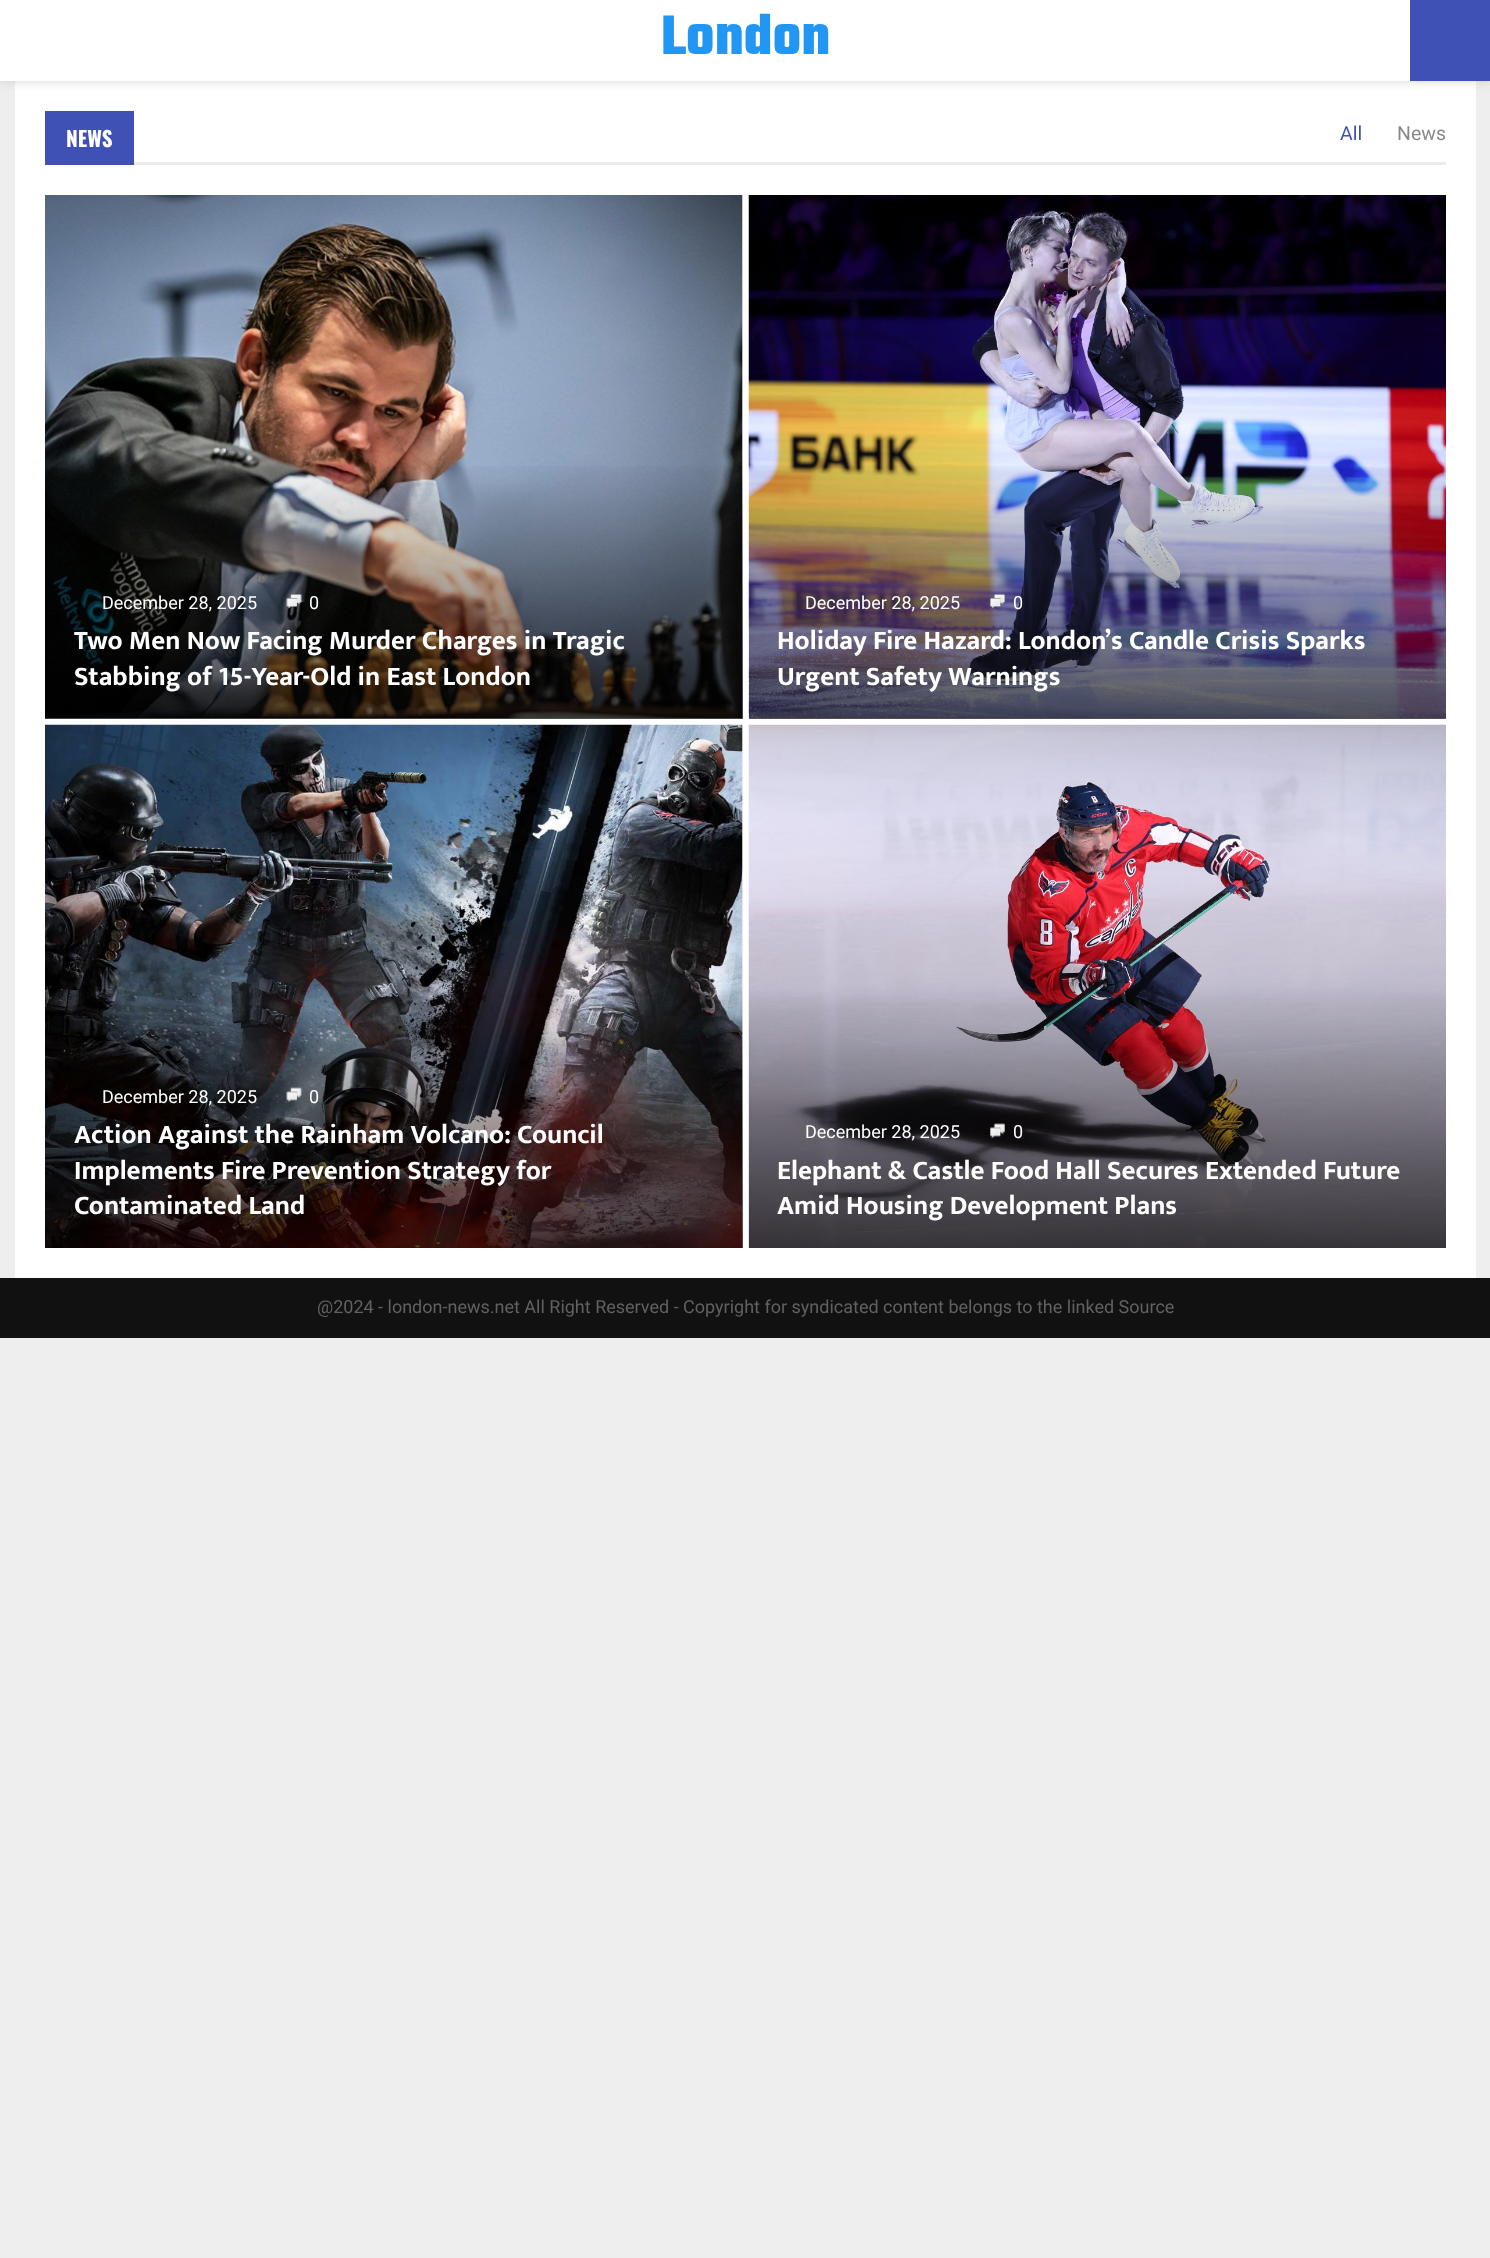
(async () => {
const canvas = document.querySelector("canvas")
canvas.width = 1490
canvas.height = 2258
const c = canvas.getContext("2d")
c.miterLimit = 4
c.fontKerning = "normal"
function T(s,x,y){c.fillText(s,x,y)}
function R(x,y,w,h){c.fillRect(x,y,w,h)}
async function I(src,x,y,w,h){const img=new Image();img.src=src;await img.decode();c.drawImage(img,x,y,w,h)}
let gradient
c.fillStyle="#eee"
R(0,0,1490,2258)
c.fillStyle="#fff"
R(15,81,1461,1197)
c.fillStyle="#bebebe75"
c.filter="blur(4px)"
c.beginPath()
c.rect(0,2,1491,81)
c.fill()
c.filter="none"
c.fillStyle="#fff"
R(0,0,1410,81)
c.font="bold 60px Teko"
c.fillStyle="#2196f3"
T("London",661,54)
c.fillStyle="#3f51b5"
R(1410,0,80,81)
c.fillStyle="#ececec"
R(134,162,1312,3)
c.fillStyle="#3f51b5"
R(45,111,89,54)
c.font="bold 21px Oswald"
c.fillStyle="#fff"
T("NEWS",66,147)
c.font="19.5px Roboto"
c.fillStyle="#3f51b5"
T("All",1340,140)
c.fillStyle="#888"
T("News",1397,140)
c.fillStyle="#f5f5f5"
R(45,195,698,524)
await I("1.png",45,195,698,524)
gradient = c.createLinearGradient(394,195,394,719)
gradient.addColorStop(.5,"#00000000")
gradient.addColorStop(1,"#000000a6")
c.fillStyle = gradient
R(45,466,698,253)
c.font="18px Roboto"
c.fillStyle="#fff"
T("December 28, 2025",102,609)
await I("2.png",286,594,16,15)
T("0",309,609)
c.font="bold 27px Mukta Vaani"
T("Two Men Now Facing Murder Charges in Tragic",74,649)
T("Stabbing of 15-Year-Old in East London",74,685)
c.fillStyle="#f5f5f5"
R(749,718,697,1)
await I("3.png",748,195,698,524)
gradient = c.createLinearGradient(1097,195,1097,719)
gradient.addColorStop(.5,"#00000000")
gradient.addColorStop(1,"#000000a6")
c.fillStyle = gradient
R(749,466,697,253)
c.font="18px Roboto"
c.fillStyle="#fff"
T("December 28, 2025",805,609)
await I("4.png",990,594,15,15)
T("0",1013,609)
c.font="bold 27px Mukta Vaani"
T("Holiday Fire Hazard: London’s Candle Crisis Sparks",777,649)
T("Urgent Safety Warnings",777,685)
c.fillStyle="#f5f5f5"
R(742,725,1,523)
await I("5.png",45,724,698,524)
gradient = c.createLinearGradient(394,725,394,1248)
gradient.addColorStop(.5,"#00000000")
gradient.addColorStop(1,"#000000a6")
c.fillStyle = gradient
R(45,995,698,253)
c.font="18px Roboto"
c.fillStyle="#fff"
T("December 28, 2025",102,1103)
await I("6.png",286,1087,16,16)
T("0",309,1103)
c.font="bold 27px Mukta Vaani"
T("Action Against the Rainham Volcano: Council",74,1143)
T("Implements Fire Prevention Strategy for",74,1179)
T("Contaminated Land",74,1214)
await I("7.png",748,724,698,524)
c.font="18px Roboto"
T("December 28, 2025",805,1138)
await I("8.png",990,1123,15,16)
T("0",1013,1138)
c.font="bold 27px Mukta Vaani"
T("Elephant & Castle Food Hall Secures Extended Future",777,1179)
T("Amid Housing Development Plans",777,1214)
c.fillStyle="#111"
R(0,1278,1490,60)
c.font="18px Roboto"
c.fillStyle="#616161"
T("@2024 - london-news.net All Right Reserved - Copyright for syndicated content belongs to the linked Source",317,1313)
})()
